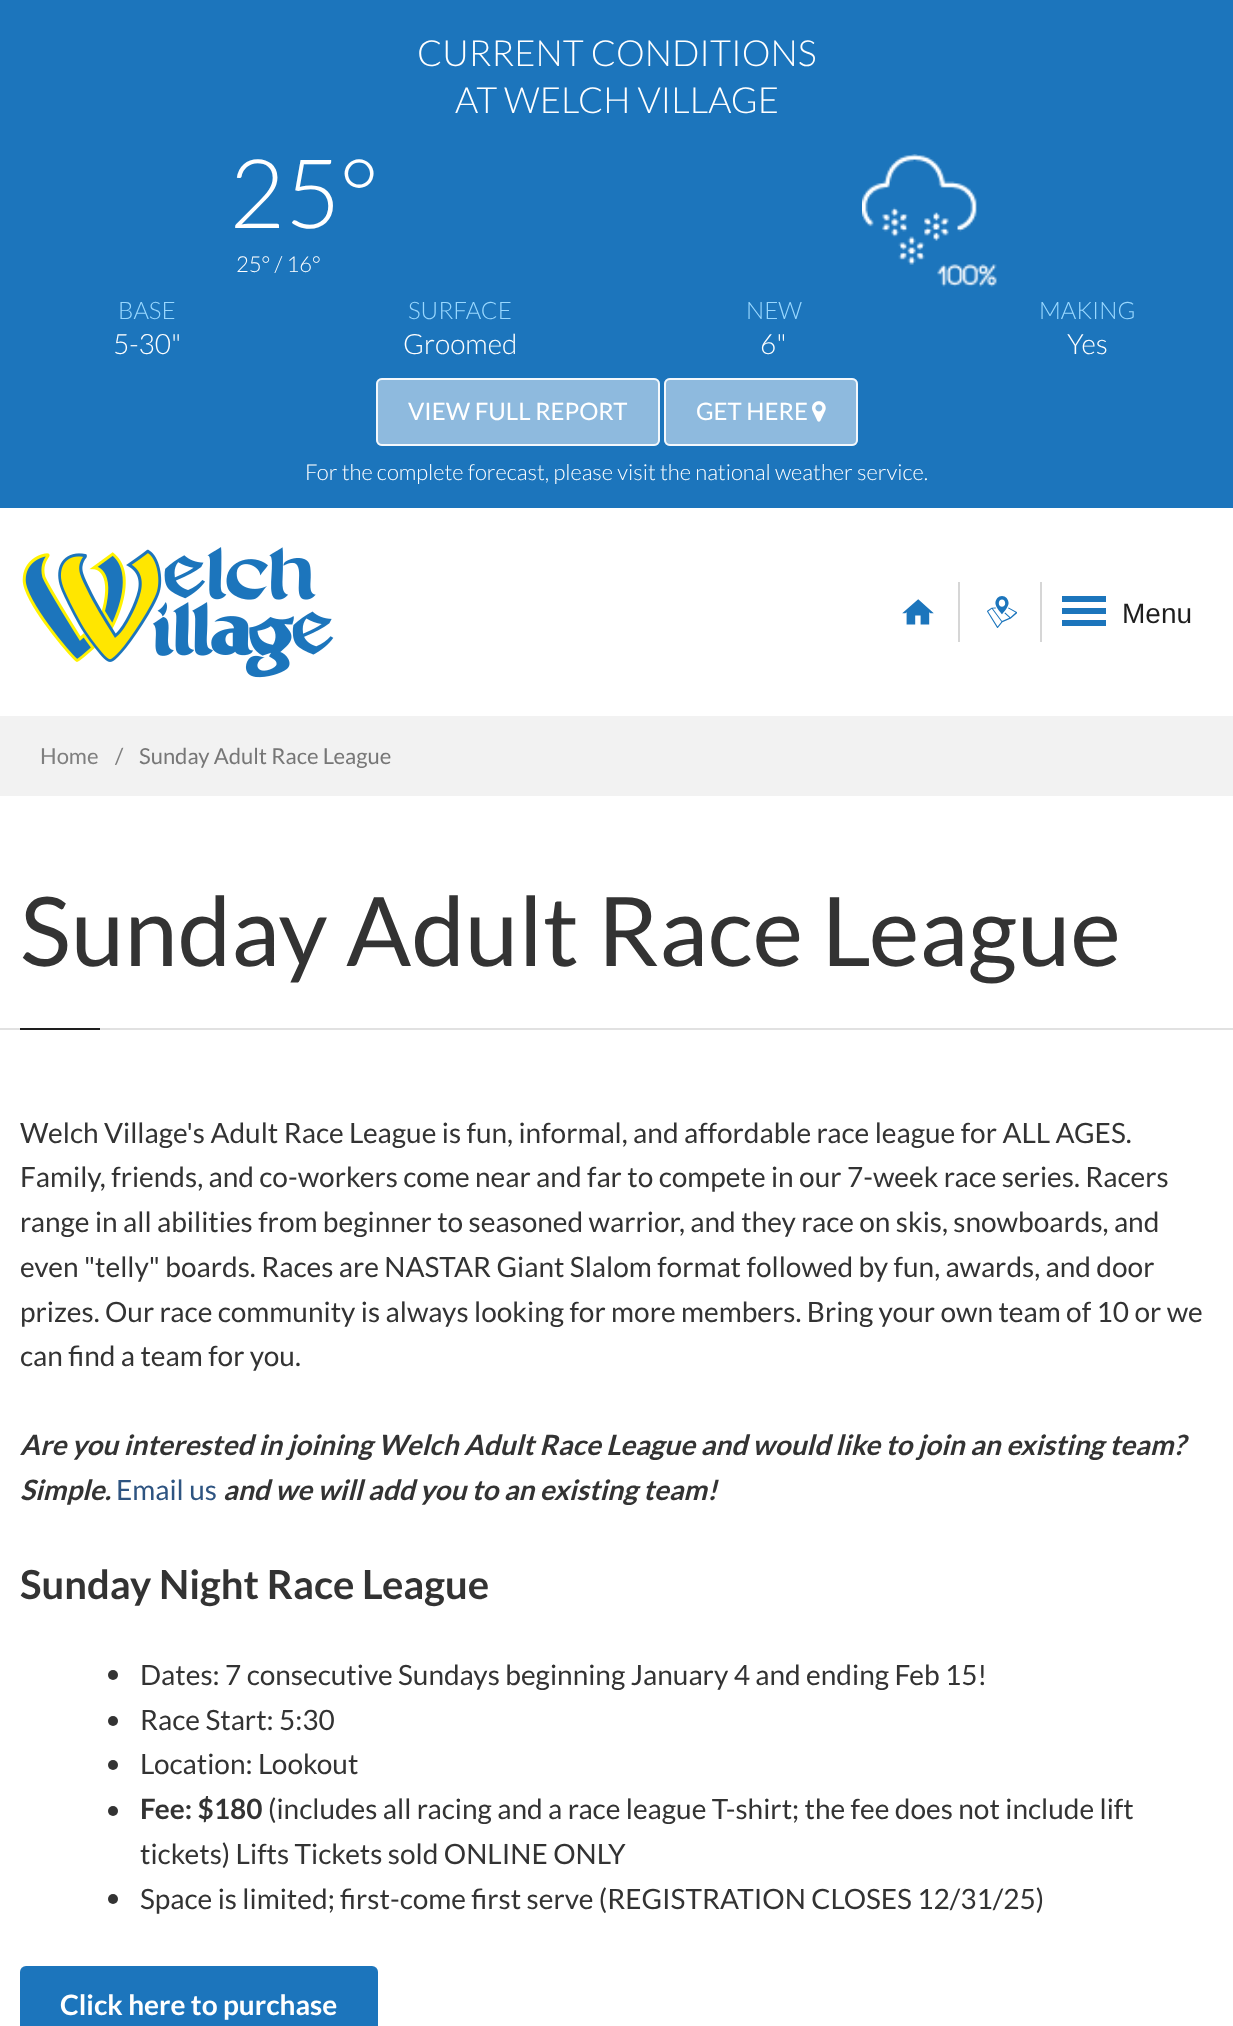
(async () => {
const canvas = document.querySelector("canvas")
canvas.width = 1233
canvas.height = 2026
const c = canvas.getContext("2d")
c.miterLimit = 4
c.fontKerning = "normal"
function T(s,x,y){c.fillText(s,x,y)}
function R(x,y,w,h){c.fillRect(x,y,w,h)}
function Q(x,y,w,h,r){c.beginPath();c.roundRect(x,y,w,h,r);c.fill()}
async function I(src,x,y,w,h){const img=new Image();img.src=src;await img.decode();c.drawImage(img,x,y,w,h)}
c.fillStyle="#fff"
R(0,0,1233,2026)
c.fillStyle="#1c75bc"
R(0,0,1233,508)
c.font="300 36px Lato"
c.fillStyle="#fff"
T("CURRENT CONDITIONS",417,66)
T("AT WELCH VILLAGE",455,113)
c.font="300 96px Lato"
T("25°",229,228)
c.font="300 22px Lato"
T("25° / 16°",236,272)
await I("1.png",862,154,135,133)
c.font="300 24px Lato"
c.fillStyle="#99d8ff"
T("BASE",118,319)
c.font="300 28px Lato"
c.fillStyle="#fff"
T("5-30\"",113,354)
c.font="300 24px Lato"
c.fillStyle="#99d8ff"
T("SURFACE",408,319)
c.font="300 28px Lato"
c.fillStyle="#fff"
T("Groomed",403,354)
c.font="300 24px Lato"
c.fillStyle="#99d8ff"
T("NEW",746,319)
c.font="300 28px Lato"
c.fillStyle="#fff"
T("6\"",760,354)
c.font="300 24px Lato"
c.fillStyle="#99d8ff"
T("MAKING",1039,319)
c.font="300 28px Lato"
c.fillStyle="#fff"
T("Yes",1067,354)
c.fillStyle="#8ebade"
Q(376,378,284,68,6)
c.beginPath()
c.roundRect(377,379,282,66,5)
c.strokeStyle="#ffffffe6"
c.lineWidth=2
c.stroke()
c.font="24px Lato"
c.fillStyle="#fff"
T("VIEW FULL REPORT",408,420)
c.fillStyle="#8ebade"
Q(664,378,194,68,6)
c.beginPath()
c.roundRect(665,379,192,66,5)
c.stroke()
c.fillStyle="#fff"
T("GET HERE",696,420)
await I("2.png",812,401,14,21)
c.font="300 22px Lato"
T("For the complete forecast, please visit the national weather service.",305,480)
await I("3.png",22,547,312,131)
c.fillStyle="#d6d6d6"
R(958,582,2,60)
await I("4.png",902,599,32,26)
await I("5.png",987,596,30,32)
R(1040,582,2,60)
c.fillStyle="#1c75bc"
R(1062,596,44,6)
R(1062,608,44,6)
c.font="28px Liberation Sans"
c.fillStyle="#1e1e1e"
T("Menu",1122,623)
c.fillStyle="#1c75bc"
R(1062,620,44,6)
c.fillStyle="#f2f2f2"
R(0,716,1233,80)
c.font="22px Lato"
c.fillStyle="#7f7f7f"
T("Home",40,764)
T("/",115,764)
c.fillStyle="#777"
T("Sunday Adult Race League",139,764)
c.fillStyle="#e1e1e1"
R(0,1028,1233,2)
c.font="96px Lato"
c.fillStyle="#333"
T("Sunday Adult Race League",20,966)
c.fillStyle="#1e1e1e"
R(20,1028,80,2)
c.font="28px Lato"
c.fillStyle="#333"
T("Welch Village's Adult Race League is fun, informal, and affordable race league for ALL AGES.",20,1143)
T("Family, friends, and co-workers come near and far to compete in our 7-week race series. Racers",20,1187)
T("range in all abilities from beginner to seasoned warrior, and they race on skis, snowboards, and",20,1232)
T("even \"telly\" boards. Races are NASTAR Giant Slalom format followed by fun, awards, and door",20,1277)
T("prizes. Our race community is always looking for more members. Bring your own team of 10 or we",20,1322)
T("can find a team for you.",20,1366)
c.font="italic bold 28px Lato"
T("Are you interested in joining Welch Adult Race League and would like to join an existing team?",20,1455)
T("Simple.",20,1500)
c.font="28px Lato"
c.fillStyle="#2e5481"
T("Email us",116,1500)
c.font="italic bold 28px Lato"
c.fillStyle="#333"
T("and we will add you to an existing team!",223,1500)
c.font="bold 40px Lato"
T("Sunday Night Race League",20,1599)
c.beginPath()
c.arc(113,1675,5,0,7)
c.fill()
c.font="28px Lato"
T("Dates: 7 consecutive Sundays beginning January 4 and ending Feb 15!",140,1685)
c.beginPath()
c.arc(113,1721,5,0,7)
c.fill()
T("Race Start: 5:30",140,1730)
c.beginPath()
c.arc(113,1765,5,0,7)
c.fill()
T("Location: Lookout",140,1774)
c.beginPath()
c.arc(113,1811,5,0,7)
c.fill()
c.font="bold 28px Lato"
T("Fee: $180",140,1819)
c.font="28px Lato"
T("(includes all racing and a race league T-shirt; the fee does not include lift",268,1819)
T("tickets) Lifts Tickets sold ONLINE ONLY",140,1864)
c.beginPath()
c.arc(113,1899,5,0,7)
c.fill()
T("Space is limited; first-come first serve (REGISTRATION CLOSES 12/31/25)",140,1909)
c.fillStyle="#1c75bc"
Q(20,1966,358,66,6)
c.font="bold 28px Lato"
c.fillStyle="#fff"
T("Click here to purchase",60,2015)
})()
